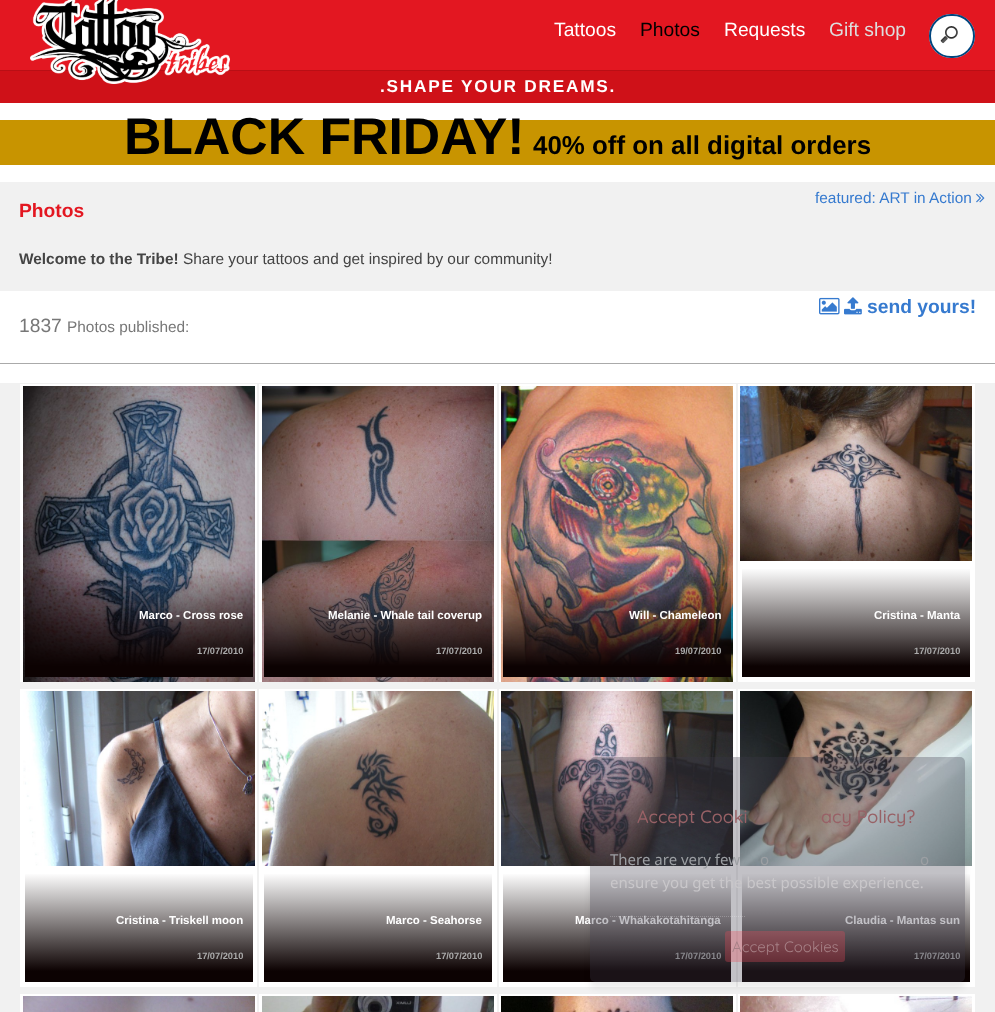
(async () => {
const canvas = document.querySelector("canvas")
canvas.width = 995
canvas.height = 1012
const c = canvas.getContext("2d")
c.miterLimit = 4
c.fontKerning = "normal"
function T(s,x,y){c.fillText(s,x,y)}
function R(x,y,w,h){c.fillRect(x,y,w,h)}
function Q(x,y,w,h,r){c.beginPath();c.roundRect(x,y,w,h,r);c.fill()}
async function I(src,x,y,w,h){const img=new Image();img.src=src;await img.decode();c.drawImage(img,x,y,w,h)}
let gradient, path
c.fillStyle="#fff"
R(0,0,995,1012)
c.fillStyle="#cf1118"
R(0,70,995,33)
c.fillStyle="#0000001a"
c.filter="blur(0.5px)"
c.beginPath()
c.rect(0,1,995,70)
c.fill()
c.filter="none"
c.fillStyle="#e31721"
R(0,0,995,70)
await I("1.png",30,0,200,84)
c.font="19.25px Liberation Sans"
c.fillStyle="#fff"
T("Tattoos",554,36)
c.fillStyle="#000"
T("Photos",640,36)
c.fillStyle="#fff"
T("Requests",724,36)
c.fillStyle="#ddd"
T("Gift shop",829,36)
c.fillStyle="#fff"
Q(929,14,46,44,22)
await I("2.png",940,26,18,18)
c.beginPath()
c.roundRect(930,15,44,42,21)
c.strokeStyle="#00457e"
c.lineWidth=2
c.stroke()
c.letterSpacing="1.75px"
c.font="bold 17.25px Liberation Sans"
T(".SHAPE YOUR DREAMS.",380,92)
c.fillStyle="#c89400"
R(0,120,995,45)
c.letterSpacing="0px"
c.font="bold 51.75px Liberation Sans"
c.fillStyle="#000"
T("BLACK FRIDAY!",124,154)
c.font="bold 25.9px Liberation Sans"
T("40% off on all digital orders",533,154)
c.fillStyle="#f1f1f1"
R(0,182,995,109)
c.font="15.4px Liberation Sans"
c.fillStyle="#367acf"
T("featured: ART in Action",815,203)
await I("3.png",976,193,9,10)
c.font="bold 19.25px Liberation Sans"
c.fillStyle="#e31721"
T("Photos",19,217)
c.font="bold 15.4px Liberation Sans"
c.fillStyle="#444"
T("Welcome to the Tribe!",19,264)
c.font="15.4px Liberation Sans"
T("Share your tattoos and get inspired by our community!",183,264)
c.fillStyle="#aaa"
R(0,363,995,1)
await I("4.png",819,297,21,18)
await I("5.png",844,297,18,18)
c.font="bold 19.25px Liberation Sans"
c.fillStyle="#367acf"
T("send yours!",867,313)
c.font="19.25px Liberation Sans"
c.fillStyle="#777"
T("1837",19,332)
c.font="15.4px Liberation Sans"
T("Photos published:",67,332)
c.fillStyle="#f1f1f1"
R(0,383,995,629)
c.fillStyle="#fff"
R(20,384,237,298)
await I("6.png",23,386,232,296)
c.font="bold 11.5px Liberation Sans"
T("Marco - Cross rose",139,619)
c.font="bold 9.25px Liberation Sans"
c.fillStyle="#aaa"
T("17/07/2010",197,654)
c.fillStyle="#fff"
R(259,384,238,298)
await I("7.png",262,386,232,296)
c.font="bold 11.5px Liberation Sans"
T("Melanie - Whale tail coverup",328,619)
c.font="bold 9.25px Liberation Sans"
c.fillStyle="#aaa"
T("17/07/2010",436,654)
c.fillStyle="#fff"
R(499,384,237,298)
await I("8.png",501,386,232,296)
c.font="bold 11.5px Liberation Sans"
T("Will - Chameleon",629,619)
c.font="bold 9.25px Liberation Sans"
c.fillStyle="#aaa"
T("19/07/2010",675,654)
c.fillStyle="#fff"
R(738,384,237,298)
await I("9.png",740,386,232,175)
gradient = c.createLinearGradient(856,568,856,677)
gradient.addColorStop(0,"#fff")
gradient.addColorStop(.9,"#0c0202")
c.fillStyle = gradient
R(742,569,228,108)
c.font="bold 11.5px Liberation Sans"
c.fillStyle="#fff"
T("Cristina - Manta",874,619)
c.font="bold 9.25px Liberation Sans"
c.fillStyle="#aaa"
T("17/07/2010",914,654)
c.fillStyle="#fff"
R(20,689,237,298)
await I("10.png",23,691,232,175)
gradient = c.createLinearGradient(139,873,139,982)
gradient.addColorStop(0,"#fff")
gradient.addColorStop(.9,"#0c0202")
c.fillStyle = gradient
R(25,874,228,108)
c.font="bold 11.5px Liberation Sans"
c.fillStyle="#fff"
T("Cristina - Triskell moon",116,924)
c.font="bold 9.25px Liberation Sans"
c.fillStyle="#aaa"
T("17/07/2010",197,959)
c.fillStyle="#fff"
R(259,689,238,298)
await I("11.png",262,691,232,175)
gradient = c.createLinearGradient(378,873,378,982)
gradient.addColorStop(0,"#fff")
gradient.addColorStop(.9,"#0c0202")
c.fillStyle = gradient
R(264,874,228,108)
c.font="bold 11.5px Liberation Sans"
c.fillStyle="#fff"
T("Marco - Seahorse",386,924)
c.font="bold 9.25px Liberation Sans"
c.fillStyle="#aaa"
T("17/07/2010",436,959)
c.fillStyle="#fff"
R(499,689,237,298)
await I("12.png",501,691,232,175)
gradient = c.createLinearGradient(617,873,617,982)
gradient.addColorStop(0,"#fff")
gradient.addColorStop(.9,"#0c0202")
c.fillStyle = gradient
R(503,874,228,108)
c.font="bold 11.5px Liberation Sans"
c.fillStyle="#fff"
T("Marco - Whakakotahitanga",575,924)
c.font="bold 9.25px Liberation Sans"
c.fillStyle="#aaa"
T("17/07/2010",675,959)
c.fillStyle="#fff"
R(738,689,237,298)
await I("13.png",740,691,232,175)
gradient = c.createLinearGradient(856,873,856,982)
gradient.addColorStop(0,"#fff")
gradient.addColorStop(.9,"#0c0202")
c.fillStyle = gradient
R(742,874,228,108)
c.font="bold 11.5px Liberation Sans"
c.fillStyle="#fff"
T("Claudia - Mantas sun",845,924)
c.font="bold 9.25px Liberation Sans"
c.fillStyle="#aaa"
T("17/07/2010",914,959)
c.fillStyle="#fff"
R(20,994,237,18)
await I("14.png",23,996,232,16)
R(259,994,238,18)
await I("15.png",262,996,232,16)
R(499,994,237,18)
await I("16.png",501,996,232,16)
R(738,994,237,18)
await I("17.png",740,996,232,16)
c.save()
path = new Path2D("M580 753h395v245h-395zm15 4h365c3 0 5 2 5 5v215c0 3-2 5-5 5h-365c-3 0-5-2-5-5v-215c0-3 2-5 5-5z")
c.clip(path,"evenodd")
c.fillStyle="#00000014"
c.filter="blur(3px)"
c.beginPath()
c.roundRect(590,763,375,225,5)
c.fill()
c.filter="none"
c.restore()
c.fillStyle="#3b36464f"
Q(590,757,375,225,5)
c.font="500 18px Quicksand"
c.fillStyle="#986166"
T("Accept Cooki",637,823)
T("acy Policy?",821,823)
c.font="15px Noto Sans"
c.fillStyle="#9c9fa3"
T("There are very few",610,865)
T("o",760,865)
T("o",920,865)
c.fillStyle="#c9c7ca"
T("ensure you get the best possible experience.",610,888)
path = new Path2D("M610 916.5h136")
c.strokeStyle="#ffffff3b"
c.lineWidth=1
c.setLineDash([1,1])
c.stroke(path)
c.fillStyle="#ee4b5a4f"
Q(725,931,120,31,3)
c.font="15px Quicksand"
c.fillStyle="#a68086"
T("Accept Cookies",732,952)
})()
